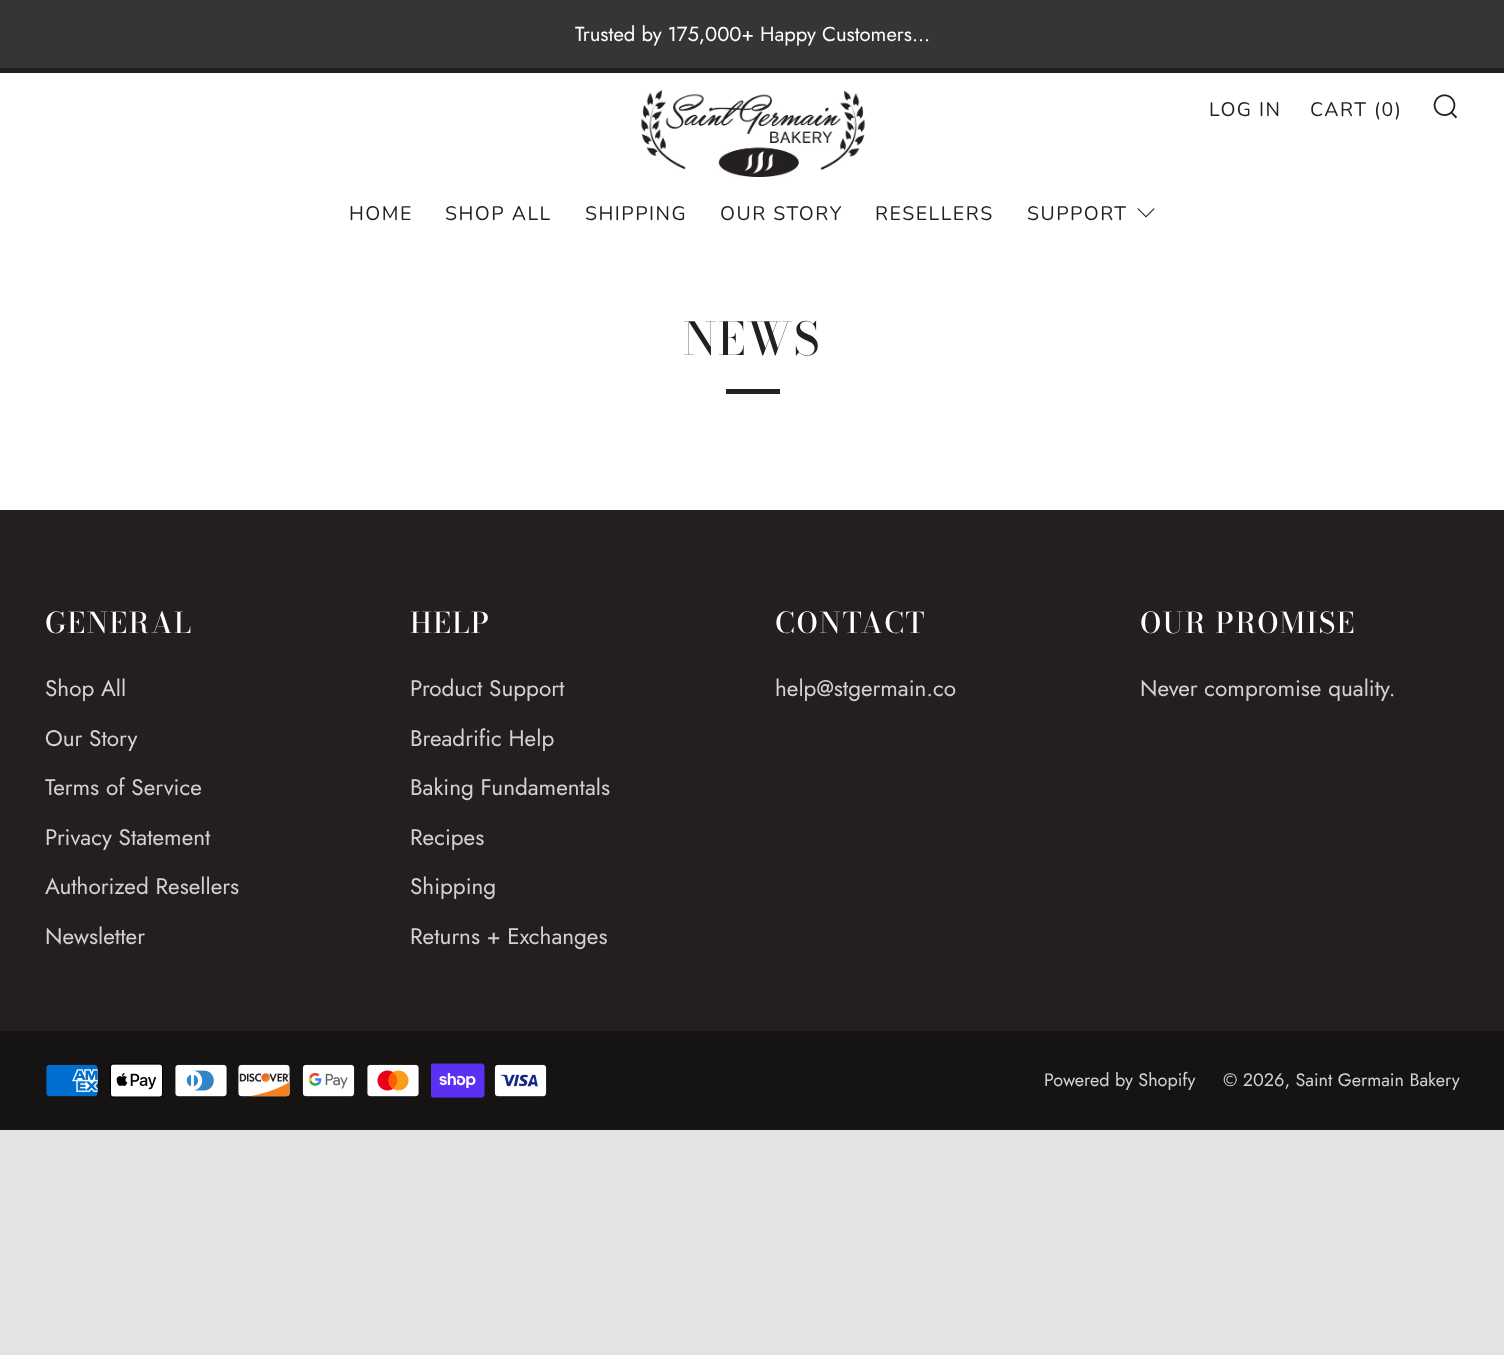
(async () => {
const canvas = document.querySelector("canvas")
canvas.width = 1504
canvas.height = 1355
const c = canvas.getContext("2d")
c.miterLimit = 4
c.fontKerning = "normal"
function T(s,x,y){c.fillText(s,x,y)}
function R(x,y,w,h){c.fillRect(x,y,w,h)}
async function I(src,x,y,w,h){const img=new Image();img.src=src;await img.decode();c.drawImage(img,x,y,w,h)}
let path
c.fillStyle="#e4e4e4"
R(0,0,1504,1355)
c.fillStyle="#fff"
R(0,73,1504,437)
c.fillStyle="#353535"
R(0,0,1504,68)
c.font="20.25px Jost"
c.fillStyle="#fff"
T("Trusted by 175,000+ Happy Customers...",575,41)
c.fillStyle="#212121"
R(0,68,1504,5)
await I("1.png",641,90,224,87)
c.letterSpacing="1.5px"
c.font="19.5px Nunito"
T("LOG IN",1209,116)
T("CART (0)",1310,116)
await I("2.png",1433,94,25,25)
T("HOME",349,220)
T("SHOP ALL",445,220)
T("SHIPPING",585,220)
T("OUR STORY",720,220)
T("RESELLERS",875,220)
T("SUPPORT",1027,220)
path = new Path2D("M1138 208l-.5 1l8.5 8.5l8.5-8.5l-.5-1l-8 8z")
c.fill(path)
c.font="500 45px 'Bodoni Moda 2'"
T("NEWS",683,355)
R(726,389,54,5)
c.fillStyle="#241f1f"
R(0,510,1504,521)
c.font="500 28.5px Bodoni Moda"
c.fillStyle="#fff"
T("GENERAL",45,633)
c.letterSpacing="0px"
c.font="22.5px Jost"
c.fillStyle="#d3d2d2"
T("Shop All",45,696)
T("Our Story",45,746)
T("Terms of Service",45,795)
T("Privacy Statement",45,845)
T("Authorized Resellers",45,894)
T("Newsletter",45,944)
c.letterSpacing="1.5px"
c.font="500 28.5px Bodoni Moda"
c.fillStyle="#fff"
T("HELP",410,633)
c.letterSpacing="0px"
c.font="22.5px Jost"
c.fillStyle="#d3d2d2"
T("Product Support",410,696)
T("Breadrific Help",410,746)
T("Baking Fundamentals",410,795)
T("Recipes",410,845)
T("Shipping",410,894)
T("Returns + Exchanges",410,944)
c.letterSpacing="1.5px"
c.font="500 28.5px Bodoni Moda"
c.fillStyle="#fff"
T("CONTACT",775,633)
c.letterSpacing="0px"
c.font="22.5px Jost"
c.fillStyle="#d3d2d2"
T("help@stgermain.co",775,696)
c.letterSpacing="1.5px"
c.font="500 28.5px Bodoni Moda"
c.fillStyle="#fff"
T("OUR PROMISE",1140,633)
c.letterSpacing="0px"
c.font="22.5px Jost"
c.fillStyle="#d3d2d2"
T("Never compromise quality.",1140,696)
c.fillStyle="#161313"
R(0,1031,1504,99)
await I("3.png",46,1064,52,33)
await I("4.png",110,1063,53,35)
await I("5.png",175,1064,52,33)
await I("6.png",238,1064,52,33)
await I("7.png",302,1064,53,33)
await I("8.png",367,1064,52,33)
await I("9.png",431,1063,54,35)
await I("10.png",494,1064,53,33)
c.font="18px Jost"
c.fillStyle="#d3d2d2"
T("Powered by Shopify",1044,1086)
T("© 2026, Saint Germain Bakery",1223,1086)
})()
